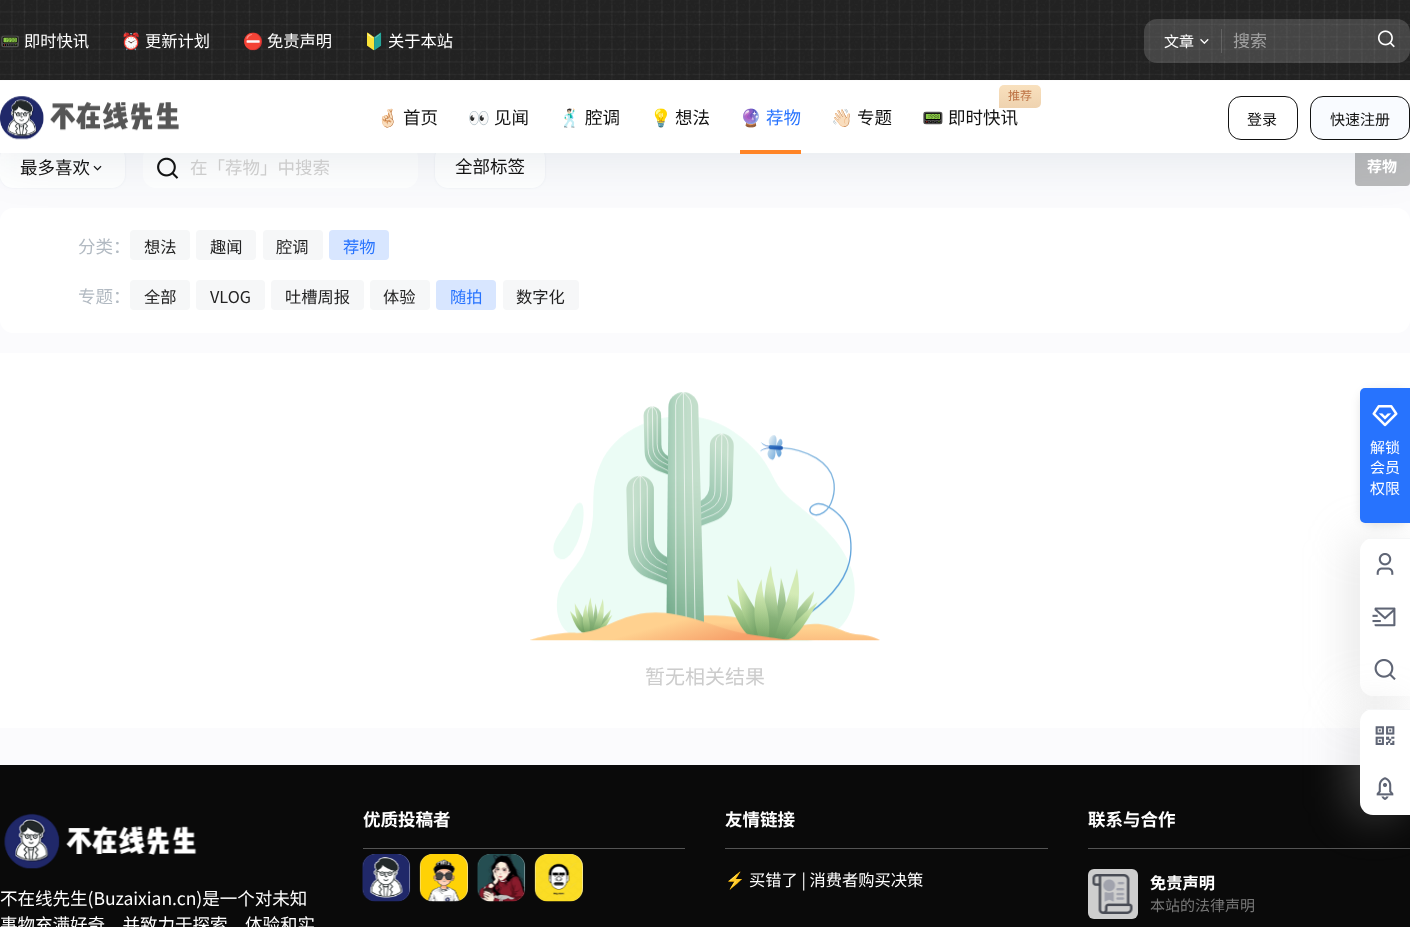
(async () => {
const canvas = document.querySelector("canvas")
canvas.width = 1410
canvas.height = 927
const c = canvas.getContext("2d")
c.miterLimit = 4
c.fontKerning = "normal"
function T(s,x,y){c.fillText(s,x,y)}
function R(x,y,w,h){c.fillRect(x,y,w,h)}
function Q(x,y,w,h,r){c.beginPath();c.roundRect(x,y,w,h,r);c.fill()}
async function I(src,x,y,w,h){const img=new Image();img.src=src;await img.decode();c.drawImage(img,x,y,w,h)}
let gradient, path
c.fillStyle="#fbfbfd"
R(0,0,1410,927)
c.fillStyle="#627c991a"
c.filter="blur(1px)"
c.beginPath()
c.roundRect(0,145,125,43,13)
c.fill()
c.filter="none"
c.fillStyle="#fff"
Q(0,145,125,43,13)
await I("5.png",93,165,9,6)
Q(143,145,275,43,13)
await I("6.png",157,157,22,22)
c.fillStyle="#627c991a"
c.filter="blur(1px)"
c.beginPath()
c.roundRect(435,145,110,43,13)
c.fill()
c.filter="none"
c.fillStyle="#fff"
Q(435,145,110,43,13)
c.fillStyle="#bababb"
Q(1355,146,55,40,4)
c.fillStyle="#fff"
Q(0,208,1410,125,13)
c.fillStyle="#f6f7f8"
Q(130,230,60,30,4)
Q(196,230,60,30,4)
Q(263,230,60,30,4)
c.fillStyle="#d8e6ff"
Q(329,230,60,30,4)
c.fillStyle="#113a5d1a"
c.filter="blur(25px)"
c.beginPath()
c.rect(0,6,1410,153)
c.fill()
c.filter="none"
c.fillStyle="#222"
R(0,0,1410,80)
await I("1.png",0,0,1410,80)
c.font="16.25px Noto Color Emoji"
c.fillStyle="#fff"
T("📟",0,47)
c.font="16.25px Noto Sans CJK SC"
T("即时快讯",24,47)
c.font="16.25px Noto Color Emoji"
T("⏰",121,47)
c.font="16.25px Noto Sans CJK SC"
T("更新计划",145,47)
c.font="16.25px Noto Color Emoji"
T("⛔",243,47)
c.font="16.25px Noto Sans CJK SC"
T("免责声明",267,47)
c.font="16.25px Noto Color Emoji"
T("🔰",364,47)
c.font="16.25px Noto Sans CJK SC"
T("关于本站",388,47)
c.fillStyle="#cccccc36"
Q(1144,19,266,44,13)
c.fillStyle="#ffffff29"
R(1221,29,1,24)
c.font="15px Noto Sans CJK SC"
c.fillStyle="#fff"
T("文章",1164,47)
await I("2.png",1200,38,9,6)
c.font="17px Noto Sans CJK SC"
c.fillStyle="#a3a3a3"
T("搜索",1233,47)
await I("3.png",1377,30,18,18)
c.fillStyle="#fff"
R(0,81,1410,72)
c.fillStyle="#fcfcfc"
R(0,80,1410,1)
await I("4.png",0,96,179,44)
c.font="17.5px Noto Color Emoji"
c.fillStyle="#121212"
T("🤞🏻",377,124)
c.font="17.5px Noto Sans CJK SC"
T("首页",403,124)
c.font="17.5px Noto Color Emoji"
T("👀",468,124)
c.font="17.5px Noto Sans CJK SC"
T("见闻",494,124)
c.font="17.5px Noto Color Emoji"
T("🕺🏻",559,124)
c.font="17.5px Noto Sans CJK SC"
T("腔调",585,124)
c.font="17.5px Noto Color Emoji"
T("💡",650,124)
c.font="17.5px Noto Sans CJK SC"
T("想法",675,124)
c.font="17.5px Noto Color Emoji"
c.fillStyle="#2773fe"
T("🔮",740,124)
c.font="17.5px Noto Sans CJK SC"
T("荐物",766,124)
c.fillStyle="#ff8426"
R(740,150,61,4)
c.font="17.5px Noto Color Emoji"
c.fillStyle="#121212"
T("👋🏻",831,124)
c.font="17.5px Noto Sans CJK SC"
T("专题",857,124)
gradient = c.createLinearGradient(1020,107,1020,84)
gradient.addColorStop(0,"#efd3b0")
gradient.addColorStop(1,"#f9e1be")
c.fillStyle = gradient
c.beginPath()
c.roundRect(999,85,42,23,[5,5,5,0])
c.fill()
c.font="12px Noto Sans CJK SC"
c.fillStyle="#bf7648"
T("推荐",1008,100)
c.font="17.5px Noto Color Emoji"
c.fillStyle="#121212"
T("📟",922,124)
c.font="17.5px Noto Sans CJK SC"
T("即时快讯",948,124)
c.beginPath()
c.roundRect(1228.5,96.5,69,43,12.5)
c.strokeStyle="#121212"
c.stroke()
c.font="15px Noto Sans CJK SC"
T("登录",1247,125)
c.fillStyle="#f9fbff"
c.beginPath()
c.roundRect(1310.5,96.5,99,43,12.5)
c.fill()
c.stroke()
c.fillStyle="#121212"
T("快速注册",1330,125)
c.font="17.5px Noto Sans CJK SC"
T("最多喜欢",20,174)
c.fillStyle="#ccc"
T("在「荐物」中搜索",190,174)
c.fillStyle="#121212"
T("全部标签",455,173)
c.font="bold 15px Noto Sans CJK SC"
c.fillStyle="#fff"
T("荐物",1367,172)
c.font="17.5px Noto Sans CJK SC"
c.fillStyle="#b2bac2"
T("分类：",78,253)
c.font="16.25px Noto Sans CJK SC"
c.fillStyle="#222"
T("想法",144,253)
T("趣闻",210,253)
T("腔调",276,253)
c.fillStyle="#2773fe"
T("荐物",343,253)
c.font="17.5px Noto Sans CJK SC"
c.fillStyle="#b2bac2"
T("专题：",78,303)
c.fillStyle="#f6f7f8"
Q(130,280,60,30,4)
c.font="16.25px Noto Sans CJK SC"
c.fillStyle="#222"
T("全部",144,303)
c.fillStyle="#f6f7f8"
Q(196,280,69,30,4)
c.fillStyle="#222"
T("VLOG",210,303)
c.fillStyle="#f6f7f8"
Q(271,280,93,30,4)
c.fillStyle="#222"
T("吐槽周报",285,303)
c.fillStyle="#f6f7f8"
Q(370,280,60,30,4)
c.fillStyle="#222"
T("体验",383,303)
c.fillStyle="#d8e6ff"
Q(436,280,60,30,4)
c.fillStyle="#2773fe"
T("随拍",450,303)
c.fillStyle="#f6f7f8"
Q(503,280,76,30,4)
c.fillStyle="#222"
T("数字化",516,303)
c.fillStyle="#fff"
R(0,353,1410,375)
c.save()
path = new Path2D("M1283 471h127v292h-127zm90 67h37v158h-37c-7 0-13-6-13-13v-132c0-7 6-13 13-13z")
c.clip(path,"evenodd")
c.fillStyle="#b5b5b552"
c.filter="blur(22px)"
c.beginPath()
c.roundRect(1350,538,50,158,13)
c.fill()
c.filter="none"
c.restore()
c.fillStyle="#f5f6f7"
R(1366,538,44,1)
c.fillStyle="#0000001a"
c.filter="blur(5px)"
c.beginPath()
c.roundRect(1360,390,50,135,13)
c.fill()
c.filter="none"
c.fillStyle="#2773fe"
c.beginPath()
c.roundRect(1360,388,50,135,[5,0,0,5])
c.fill()
await I("7.png",1372,405,26,22)
c.font="15px Noto Sans CJK SC"
c.fillStyle="#fff"
T("解锁",1370,453)
T("会员",1370,473)
T("权限",1370,494)
await I("8.png",1376,553,18,22)
await I("9.png",1372,607,24,20)
await I("10.png",1374,659,22,21)
c.fillStyle="#0a0a0a"
R(0,765,1410,162)
c.fillStyle="#545454"
R(1088,848,322,1)
c.fillStyle="#b5b5b552"
c.filter="blur(22px)"
c.beginPath()
c.roundRect(1350,709,50,106,13)
c.fill()
c.filter="none"
c.fillStyle="#fff"
c.beginPath()
c.roundRect(1360,709,50,106,[13,0,0,13])
c.fill()
c.fillStyle="#f5f6f7"
R(1366,709,44,1)
await I("11.png",1375,726,20,19)
await I("12.png",1376,777,18,23)
await I("13.png",530,392,350,250)
c.font="20px Noto Sans CJK SC"
c.fillStyle="#ccc"
T("暂无相关结果",645,684)
await I("14.png",4,813,193,56)
c.font="17.5px Noto Sans CJK SC"
c.fillStyle="#fff"
T("不在线先生(Buzaixian.cn)是一个对未知",0,905)
T("事物充满好奇，并致力于探索、体验和实",0,931)
c.fillStyle="#545454"
R(363,848,322,1)
c.font="bold 17.5px Noto Sans CJK SC"
c.fillStyle="#fff"
T("优质投稿者",363,826)
c.fillStyle="#eee"
Q(363,854,47,47,13)
await I("15.png",362,854,49,48)
Q(420,854,48,47,13)
await I("16.png",419,854,49,48)
Q(478,854,47,47,13)
await I("17.png",477,854,49,48)
Q(535,854,48,47,13)
await I("18.png",534,854,49,48)
c.fillStyle="#545454"
R(725,848,323,1)
c.fillStyle="#fff"
T("友情链接",725,826)
c.font="16.25px Noto Color Emoji"
T("⚡",725,886)
c.font="16.25px Noto Sans CJK SC"
T("买错了 | 消费者购买决策",749,886)
c.font="bold 17.5px Noto Sans CJK SC"
T("联系与合作",1088,826)
c.fillStyle="#cecece"
Q(1088,869,50,50,6)
await I("19.png",1092,874,41,40)
c.font="bold 16.25px Noto Sans CJK SC"
c.fillStyle="#fff"
T("免责声明",1150,889)
c.font="15px Noto Sans CJK SC"
c.fillStyle="#777"
T("本站的法律声明",1150,911)
})()
